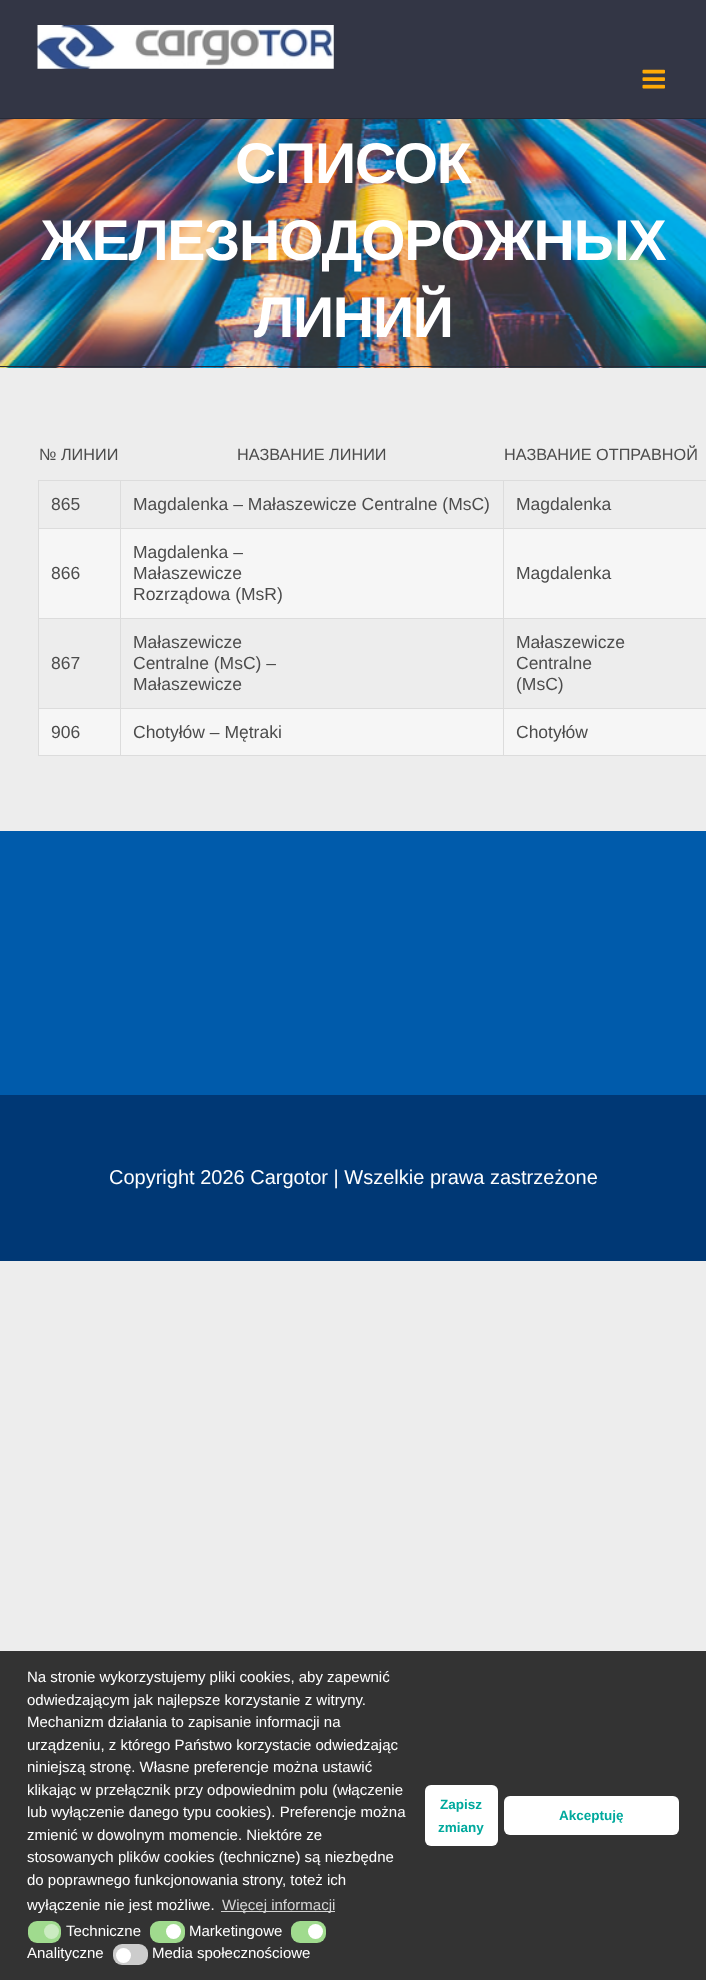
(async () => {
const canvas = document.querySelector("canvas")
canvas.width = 706
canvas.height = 1980
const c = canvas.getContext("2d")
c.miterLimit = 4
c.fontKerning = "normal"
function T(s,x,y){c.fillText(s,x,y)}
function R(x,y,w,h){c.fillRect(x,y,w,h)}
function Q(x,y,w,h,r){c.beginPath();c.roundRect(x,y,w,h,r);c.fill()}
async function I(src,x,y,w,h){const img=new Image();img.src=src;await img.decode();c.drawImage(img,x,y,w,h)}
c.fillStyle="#ededed"
R(0,0,706,1980)
c.fillStyle="#333645"
R(0,0,706,118)
await I("1.png",37,25,297,44)
await I("2.png",642,69,23,20)
await I("3.png",0,119,706,249)
c.fillStyle="#292b37"
R(0,118,706,1)
R(0,366,706,1)
c.letterSpacing="-1.25px"
c.font="bold 57.25px Liberation Sans"
c.fillStyle="#fff"
T("СПИСОК",235,183)
T("ЖЕЛЕЗНОДОРОЖНЫХ",41,260)
T("ЛИНИЙ",254,337)
c.letterSpacing="0px"
c.font="16.25px Liberation Sans"
c.fillStyle="#4c4c4c"
T("№ ЛИНИИ",39,460)
T("НАЗВАНИЕ ЛИНИИ",237,460)
T("НАЗВАНИЕ ОТПРАВНОЙ",504,460)
c.fillStyle="#dcdcdc"
R(503,480,203,1)
R(503,528,203,1)
c.fillStyle="#f6f6f6"
R(39,529,667,89)
c.fillStyle="#dcdcdc"
R(503,618,203,1)
R(503,708,203,1)
c.fillStyle="#f6f6f6"
R(39,709,667,46)
c.fillStyle="#dcdcdc"
R(503,755,203,1)
R(503,708,1,48)
R(120,708,384,1)
R(503,618,1,91)
R(120,618,384,1)
R(503,528,1,91)
R(120,528,384,1)
R(503,480,1,49)
R(120,480,384,1)
R(120,755,384,1)
R(120,708,1,48)
R(38,708,83,1)
R(120,618,1,91)
R(38,618,83,1)
R(120,528,1,91)
R(38,528,83,1)
R(120,480,1,49)
R(38,480,83,1)
R(38,755,83,1)
R(38,708,1,48)
R(38,618,1,91)
R(38,528,1,91)
R(38,480,1,49)
c.font="17.5px Liberation Sans"
c.fillStyle="#4c4c4c"
T("865",51,510)
T("Magdalenka – Małaszewicze Centralne (MsC)",133,510)
T("Magdalenka",516,510)
T("866",51,579)
T("Magdalenka –",133,558)
T("Małaszewicze",133,579)
T("Rozrządowa (MsR)",133,600)
T("Magdalenka",516,579)
T("867",51,669)
T("Małaszewicze",133,648)
T("Centralne (MsC) –",133,669)
T("Małaszewicze",133,690)
T("Małaszewicze",516,648)
T("Centralne",516,669)
T("(MsC)",516,690)
T("906",51,738)
T("Chotyłów – Mętraki",133,738)
T("Chotyłów",516,738)
c.fillStyle="#005bab"
R(0,831,706,264)
c.fillStyle="#003875"
R(0,1095,706,166)
c.font="20px Liberation Sans"
c.fillStyle="#fff"
T("Copyright 2026 Cargotor | Wszelkie prawa zastrzeżone",109,1184)
c.fillStyle="#333"
R(0,1651,706,329)
c.font="15px Liberation Sans"
c.fillStyle="#fff"
T("Na stronie wykorzystujemy pliki cookies, aby zapewnić",27,1682)
T("odwiedzającym jak najlepsze korzystanie z witryny.",27,1705)
T("Mechanizm działania to zapisanie informacji na",27,1727)
T("urządzeniu, z którego Państwo korzystacie odwiedzając",27,1750)
T("niniejszą stronę. Własne preferencje można ustawić",27,1772)
T("klikając w przełącznik przy odpowiednim polu (włączenie",27,1795)
T("lub wyłączenie danego typu cookies). Preferencje można",27,1817)
T("zmienić w dowolnym momencie. Niektóre ze",27,1840)
T("stosowanych plików cookies (techniczne) są niezbędne",27,1862)
T("do poprawnego funkcjonowania strony, toteż ich",27,1885)
T("wyłączenie nie jest możliwe.",27,1910)
c.fillStyle="#d6d6d6"
R(221,1911,114,1)
T("Więcej informacji",222,1910)
c.fillStyle="#a0db8e"
Q(28,1921,33,22,9)
c.fillStyle="#cbebc1"
c.beginPath()
c.arc(51.5,1931.5,7.5,0,7)
c.fill()
c.fillStyle="#fff"
T("Techniczne",66,1936)
c.fillStyle="#a0db8e"
Q(150,1921,35,22,9)
c.fillStyle="#fff"
c.beginPath()
c.arc(173.5,1931.5,7.5,0,7)
c.fill()
T("Marketingowe",189,1936)
c.fillStyle="#a0db8e"
Q(291,1921,35,22,9)
c.fillStyle="#fff"
c.beginPath()
c.arc(315.5,1931.5,7.5,0,7)
c.fill()
T("Analityczne",27,1958)
c.fillStyle="#ccc"
Q(113,1944,35,21,9)
c.fillStyle="#fff"
c.beginPath()
c.arc(123.5,1955.5,7.5,0,7)
c.fill()
T("Media społecznościowe",152,1958)
Q(425,1785,73,61,6)
c.font="bold 13.5px Liberation Sans"
c.fillStyle="#00a99d"
T("Zapisz",440,1809)
T("zmiany",438,1832)
c.fillStyle="#fff"
Q(504,1796,175,39,6)
c.fillStyle="#00a99d"
T("Akceptuję",559,1820)
})()
